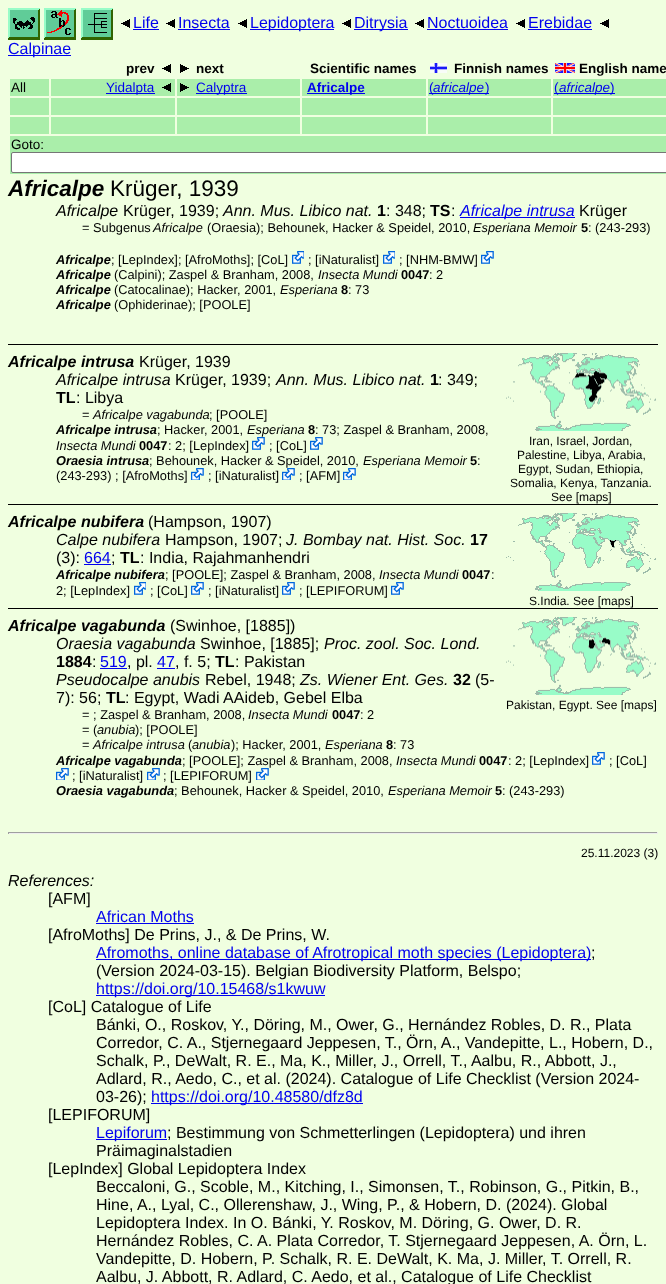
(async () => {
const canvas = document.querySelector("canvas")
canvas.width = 666
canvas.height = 1284
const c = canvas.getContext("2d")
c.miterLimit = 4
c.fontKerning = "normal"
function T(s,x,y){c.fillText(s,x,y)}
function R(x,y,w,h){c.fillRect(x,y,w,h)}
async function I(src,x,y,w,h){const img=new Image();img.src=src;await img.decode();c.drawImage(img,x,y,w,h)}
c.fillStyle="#f0ffe0"
R(0,0,666,1284)
await I("1.png",8,8,32,32)
await I("2.png",44,8,32,32)
await I("3.png",81,8,32,32)
await I("4.png",121,19,9,9)
c.font="16px Liberation Sans"
c.fillStyle="#00e"
T("Life",133,28)
R(133,29,26,1)
await I("4.png",166,19,9,9)
T("Insecta",178,28)
R(178,29,52,1)
await I("4.png",238,19,9,9)
R(250,29,84,1)
T("Lepidoptera",250,28)
await I("4.png",342,19,9,9)
R(354,29,54,1)
T("Ditrysia",354,28)
await I("4.png",415,19,9,9)
T("Noctuoidea",427,28)
R(427,29,81,1)
await I("4.png",516,19,9,9)
T("Erebidae",528,28)
R(528,29,64,1)
await I("4.png",600,19,9,9)
R(8,55,63,1)
T("Calpinae",8,54)
c.font="bold 13.5px Liberation Sans"
c.fillStyle="#000"
T("prev",126,73)
await I("4.png",162,64,9,9)
await I("5.png",180,64,9,9)
T("next",196,73)
T("Scientific names",310,73)
await I("6.png",430,63,17,10)
T("Finnish names",454,73)
await I("7.png",555,63,20,10)
T("English name",579,73)
c.fillStyle="#aea"
R(10,79,39,17)
c.font="13.5px Liberation Sans"
c.fillStyle="#000"
T("All",11,92)
c.fillStyle="#aea"
R(51,79,124,17)
c.fillStyle="#00e"
R(106,93,49,1)
T("Yidalpta",106,92)
await I("8.png",162,83,9,9)
c.fillStyle="#aea"
R(177,79,123,17)
await I("9.png",180,83,9,9)
c.fillStyle="#00e"
R(196,93,51,1)
T("Calyptra",196,92)
c.fillStyle="#aea"
R(302,79,124,17)
c.fillStyle="#00e"
R(307,93,58,1)
c.font="bold 13.5px Liberation Sans"
T("Africalpe",307,92)
c.fillStyle="#aea"
R(428,79,123,17)
c.fillStyle="#00e"
R(429,93,4,1)
c.font="13.5px Liberation Sans"
T("(",429,92)
R(433,93,56,1)
c.font="italic 13.5px Liberation Sans"
T("africalpe",433,92)
c.font="13.5px Liberation Sans"
T(")",485,92)
c.fillStyle="#aea"
R(553,79,113,17)
c.fillStyle="#00e"
R(554,93,61,1)
T("(",554,92)
c.font="italic 13.5px Liberation Sans"
T("africalpe",559,92)
c.font="13.5px Liberation Sans"
T(")",610,92)
c.fillStyle="#aea"
R(10,98,39,17)
R(51,98,124,17)
R(177,98,123,17)
R(302,98,124,17)
R(428,98,123,17)
R(553,98,113,17)
R(10,117,39,17)
R(51,117,124,17)
R(177,117,123,17)
R(302,117,124,17)
R(428,117,123,17)
R(553,117,113,17)
R(10,136,656,38)
c.fillStyle="#000"
T("Goto:",11,149)
c.fillStyle="#fff"
c.beginPath()
c.roundRect(11.5,152.5,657,20,1.5)
c.fill()
c.strokeStyle="#767676"
c.stroke()
c.font="italic bold 22.5px Liberation Sans"
c.fillStyle="#000"
T("Africalpe",8,196)
c.font="22.5px Liberation Sans"
T("Krüger, 1939",110,196)
c.font="italic 16px Liberation Sans"
T("Africalpe",56,216)
c.font="16px Liberation Sans"
T("Krüger, 1939;",123,216)
c.font="italic 16px Liberation Sans"
T("Ann. Mus. Libico nat.",223,216)
c.font="bold 16px Liberation Sans"
T("1",377,216)
c.font="16px Liberation Sans"
T(": 348;",386,216)
c.font="bold 16px Liberation Sans"
T("TS",430,216)
c.font="16px Liberation Sans"
T(":",451,216)
c.fillStyle="#00e"
R(460,217,115,1)
c.font="italic 16px Liberation Sans"
T("Africalpe intrusa",460,216)
c.font="16px Liberation Sans"
c.fillStyle="#000"
T("Krüger",579,216)
c.font="12.8px Liberation Sans"
T("= Subgenus",82,232)
c.font="italic 12.8px Liberation Sans"
T("Africalpe",153,232)
c.font="12.8px Liberation Sans"
T("(Oraesia); Behounek, Hacker & Speidel, 2010,",207,232)
c.font="italic 12.8px Liberation Sans"
T("Esperiana Memoir",473,232)
c.font="bold 12.8px Liberation Sans"
T("5",581,232)
c.font="12.8px Liberation Sans"
T(": (243-293)",588,232)
c.font="italic bold 12.8px Liberation Sans"
T("Africalpe",56,264)
c.font="12.8px Liberation Sans"
T("; [LepIndex]; [AfroMoths]; [CoL]",111,264)
await I("10.png",292,251,12,13)
T("; [iNaturalist]",308,264)
await I("10.png",383,251,12,13)
T("; [NHM-BMW]",399,264)
await I("11.png",481,251,13,13)
c.font="italic bold 12.8px Liberation Sans"
T("Africalpe",56,279)
c.font="12.8px Liberation Sans"
T("(Calpini); Zaspel & Branham, 2008,",114,279)
c.font="italic 12.8px Liberation Sans"
T("Insecta Mundi",318,279)
c.font="bold 12.8px Liberation Sans"
T("0047",401,279)
c.font="12.8px Liberation Sans"
T(": 2",429,279)
c.font="italic bold 12.8px Liberation Sans"
T("Africalpe",56,294)
c.font="12.8px Liberation Sans"
T("(Catocalinae); Hacker, 2001,",114,294)
c.font="italic 12.8px Liberation Sans"
T("Esperiana",280,294)
c.font="bold 12.8px Liberation Sans"
T("8",341,294)
c.font="12.8px Liberation Sans"
T(": 73",348,294)
c.font="italic bold 12.8px Liberation Sans"
T("Africalpe",56,309)
c.font="12.8px Liberation Sans"
T("(Ophiderinae); [POOLE]",114,309)
R(8,344,650,1)
c.font="italic bold 16px Liberation Sans"
T("Africalpe intrusa",8,367)
c.font="16px Liberation Sans"
T("Krüger, 1939",139,367)
c.font="italic 16px Liberation Sans"
T("Africalpe intrusa",56,385)
c.font="16px Liberation Sans"
T("Krüger, 1939;",175,385)
c.font="italic 16px Liberation Sans"
T("Ann. Mus. Libico nat.",276,385)
c.font="bold 16px Liberation Sans"
T("1",430,385)
c.font="16px Liberation Sans"
T(": 349;",438,385)
c.font="bold 16px Liberation Sans"
T("TL",56,403)
c.font="16px Liberation Sans"
T(": Libya",76,403)
c.font="12.8px Liberation Sans"
T("=",82,419)
c.font="italic 12.8px Liberation Sans"
T("Africalpe vagabunda",93,419)
c.font="12.8px Liberation Sans"
T("; [POOLE]",209,419)
c.font="italic bold 12.8px Liberation Sans"
T("Africalpe intrusa",56,434)
c.font="12.8px Liberation Sans"
T("; Hacker, 2001,",157,434)
c.font="italic 12.8px Liberation Sans"
T("Esperiana",247,434)
c.font="bold 12.8px Liberation Sans"
T("8",308,434)
c.font="12.8px Liberation Sans"
T(": 73; Zaspel & Branham, 2008,",315,434)
c.font="italic 12.8px Liberation Sans"
T("Insecta Mundi",56,450)
c.font="bold 12.8px Liberation Sans"
T("0047",139,450)
c.font="12.8px Liberation Sans"
T(": 2; [LepIndex]",168,450)
await I("11.png",252,437,13,13)
T("; [CoL]",269,450)
await I("11.png",310,437,13,13)
c.font="italic bold 12.8px Liberation Sans"
T("Oraesia intrusa",56,465)
c.font="12.8px Liberation Sans"
T("; Behounek, Hacker & Speidel, 2010,",149,465)
c.font="italic 12.8px Liberation Sans"
T("Esperiana Memoir",363,465)
c.font="bold 12.8px Liberation Sans"
T("5",470,465)
c.font="12.8px Liberation Sans"
T(":",477,465)
T("(243-293) ; [AfroMoths]",56,480)
await I("12.png",191,468,13,12)
T("; [iNaturalist]",208,480)
await I("12.png",282,468,13,12)
T("; [AFM]",299,480)
await I("12.png",343,468,13,12)
await I("13.png",506,353,150,78)
c.font="12px Liberation Sans"
T("Iran, Israel, Jordan,",529,445)
T("Palestine, Libya, Arabia,",517,459)
T("Egypt, Sudan, Ethiopia,",518,473)
T("Somalia, Kenya, Tanzania.",510,487)
T("See [maps]",551,501)
R(8,504,650,1)
c.font="italic bold 16px Liberation Sans"
T("Africalpe nubifera",8,527)
c.font="16px Liberation Sans"
T("(Hampson, 1907)",148,527)
c.font="italic 16px Liberation Sans"
T("Calpe nubifera",56,545)
c.font="16px Liberation Sans"
T("Hampson, 1907;",165,545)
c.font="italic 16px Liberation Sans"
T("J. Bombay nat. Hist. Soc.",286,545)
c.font="bold 16px Liberation Sans"
T("17",470,545)
c.font="16px Liberation Sans"
T("(3):",56,563)
c.fillStyle="#00e"
T("664",84,563)
R(84,564,27,1)
c.fillStyle="#000"
T(";",111,563)
c.font="bold 16px Liberation Sans"
T("TL",120,563)
c.font="16px Liberation Sans"
T(": India, Rajahmanhendri",140,563)
c.font="italic bold 12.8px Liberation Sans"
T("Africalpe nubifera",56,579)
c.font="12.8px Liberation Sans"
T("; [POOLE]; Zaspel & Branham, 2008,",165,579)
c.font="italic 12.8px Liberation Sans"
T("Insecta Mundi",379,579)
c.font="bold 12.8px Liberation Sans"
T("0047",462,579)
c.font="12.8px Liberation Sans"
T(":",491,579)
T("2; [LepIndex]",56,595)
await I("10.png",134,582,12,13)
T("; [CoL]",150,595)
await I("11.png",191,582,13,13)
T("; [iNaturalist]",208,595)
await I("11.png",282,582,13,13)
T("; [LEPIFORUM]",299,595)
await I("11.png",391,582,13,13)
await I("14.png",506,513,150,78)
c.font="12px Liberation Sans"
T("S.India. See [maps]",529,605)
R(8,608,650,1)
c.font="italic bold 16px Liberation Sans"
T("Africalpe vagabunda",8,631)
c.font="16px Liberation Sans"
T("(Swinhoe, [1885])",170,631)
c.font="italic 16px Liberation Sans"
T("Oraesia vagabunda",56,649)
c.font="16px Liberation Sans"
T("Swinhoe, [1885];",200,649)
c.font="italic 16px Liberation Sans"
T("Proc. zool. Soc. Lond.",324,649)
c.font="bold 16px Liberation Sans"
T("1884",56,667)
c.font="16px Liberation Sans"
T(":",92,667)
c.fillStyle="#00e"
T("519",100,667)
R(100,668,27,1)
c.fillStyle="#000"
T(", pl.",127,667)
c.fillStyle="#00e"
T("47",157,667)
R(157,668,18,1)
c.fillStyle="#000"
T(", f. 5;",175,667)
c.font="bold 16px Liberation Sans"
T("TL",215,667)
c.font="16px Liberation Sans"
T(": Pakistan",235,667)
c.font="italic 16px Liberation Sans"
T("Pseudocalpe anubis",56,685)
c.font="16px Liberation Sans"
T("Rebel, 1948;",205,685)
c.font="italic 16px Liberation Sans"
T("Zs. Wiener Ent. Ges.",300,685)
c.font="bold 16px Liberation Sans"
T("32",453,685)
c.font="16px Liberation Sans"
T("(5-",475,685)
T("7): 56;",56,703)
c.font="bold 16px Liberation Sans"
T("TL",106,703)
c.font="16px Liberation Sans"
T(": Egypt, Wadi AAideb, Gebel Elba",125,703)
c.font="12.8px Liberation Sans"
T("= ; Zaspel & Branham, 2008,",82,719)
c.font="italic 12.8px Liberation Sans"
T("Insecta Mundi",248,719)
c.font="bold 12.8px Liberation Sans"
T("0047",332,719)
c.font="12.8px Liberation Sans"
T(": 2",360,719)
T("= (",82,734)
c.font="italic 12.8px Liberation Sans"
T("anubia",97,734)
c.font="12.8px Liberation Sans"
T("); [POOLE]",135,734)
T("=",82,749)
c.font="italic 12.8px Liberation Sans"
T("Africalpe intrusa",93,749)
c.font="12.8px Liberation Sans"
T("(",188,749)
c.font="italic 12.8px Liberation Sans"
T("anubia",192,749)
c.font="12.8px Liberation Sans"
T("); Hacker, 2001,",231,749)
c.font="italic 12.8px Liberation Sans"
T("Esperiana",325,749)
c.font="bold 12.8px Liberation Sans"
T("8",386,749)
c.font="12.8px Liberation Sans"
T(": 73",393,749)
await I("15.png",506,617,150,78)
c.font="12px Liberation Sans"
T("Pakistan, Egypt. See [maps]",506,709)
c.font="italic bold 12.8px Liberation Sans"
T("Africalpe vagabunda",56,765)
c.font="12.8px Liberation Sans"
T("; [POOLE]; Zaspel & Branham, 2008,",182,765)
c.font="italic 12.8px Liberation Sans"
T("Insecta Mundi",396,765)
c.font="bold 12.8px Liberation Sans"
T("0047",479,765)
c.font="12.8px Liberation Sans"
T(": 2; [LepIndex]",508,765)
await I("11.png",592,752,13,13)
T("; [CoL]",609,765)
await I("12.png",56,768,13,12)
T("; [iNaturalist]",72,780)
await I("12.png",147,768,13,12)
T("; [LEPIFORUM]",163,780)
await I("12.png",256,768,13,12)
c.font="italic bold 12.8px Liberation Sans"
T("Oraesia vagabunda",56,795)
c.font="12.8px Liberation Sans"
T("; Behounek, Hacker & Speidel, 2010,",174,795)
c.font="italic 12.8px Liberation Sans"
T("Esperiana Memoir",388,795)
c.font="bold 12.8px Liberation Sans"
T("5",495,795)
c.font="12.8px Liberation Sans"
T(": (243-293)",502,795)
c.fillStyle="#9f9f9f"
R(8,832,650,1)
c.fillStyle="#eee"
R(657,832,1,2)
R(8,833,650,1)
c.fillStyle="#9f9f9f"
R(8,832,1,2)
c.font="12px Liberation Sans"
c.fillStyle="#000"
T("25.11.2023 (3)",581,857)
c.font="italic 16px Liberation Sans"
T("References:",8,886)
c.font="16px Liberation Sans"
T("[AFM]",48,904)
c.fillStyle="#00e"
T("African Moths",96,922)
R(96,923,98,1)
c.fillStyle="#000"
T("[AfroMoths] De Prins, J., & De Prins, W.",48,940)
c.fillStyle="#00e"
R(96,959,495,1)
T("Afromoths, online database of Afrotropical moth species (Lepidoptera)",96,958)
c.fillStyle="#000"
T(";",591,958)
T("(Version 2024-03-15). Belgian Biodiversity Platform, Belspo;",96,976)
c.fillStyle="#00e"
R(96,995,229,1)
T("https://doi.org/10.15468/s1kwuw",96,994)
c.fillStyle="#000"
T("[CoL] Catalogue of Life",48,1012)
T("Bánki, O., Roskov, Y., Döring, M., Ower, G., Hernández Robles, D. R., Plata",96,1030)
T("Corredor, C. A., Stjernegaard Jeppesen, T., Örn, A., Vandepitte, L., Hobern, D.,",96,1048)
T("Schalk, P., DeWalt, R. E., Ma, K., Miller, J., Orrell, T., Aalbu, R., Abbott, J.,",96,1066)
T("Adlard, R., Aedo, C., et al. (2024). Catalogue of Life Checklist (Version 2024-",96,1084)
T("03-26);",96,1102)
c.fillStyle="#00e"
R(151,1103,212,1)
T("https://doi.org/10.48580/dfz8d",151,1102)
c.fillStyle="#000"
T("[LEPIFORUM]",48,1120)
c.fillStyle="#00e"
R(96,1139,71,1)
T("Lepiforum",96,1138)
c.fillStyle="#000"
T("; Bestimmung von Schmetterlingen (Lepidoptera) und ihren",167,1138)
T("Präimaginalstadien",96,1156)
T("[LepIndex] Global Lepidoptera Index",48,1174)
T("Beccaloni, G., Scoble, M., Kitching, I., Simonsen, T., Robinson, G., Pitkin, B.,",96,1192)
T("Hine, A., Lyal, C., Ollerenshaw, J., Wing, P., & Hobern, D. (2024). Global",96,1210)
T("Lepidoptera Index. In O. Bánki, Y. Roskov, M. Döring, G. Ower, D. R.",96,1228)
T("Hernández Robles, C. A. Plata Corredor, T. Stjernegaard Jeppesen, A. Örn, L.",96,1246)
T("Vandepitte, D. Hobern, P. Schalk, R. E. DeWalt, K. Ma, J. Miller, T. Orrell, R.",96,1264)
T("Aalbu, J. Abbott, R. Adlard, C. Aedo, et al., Catalogue of Life Checklist",96,1282)
})()
